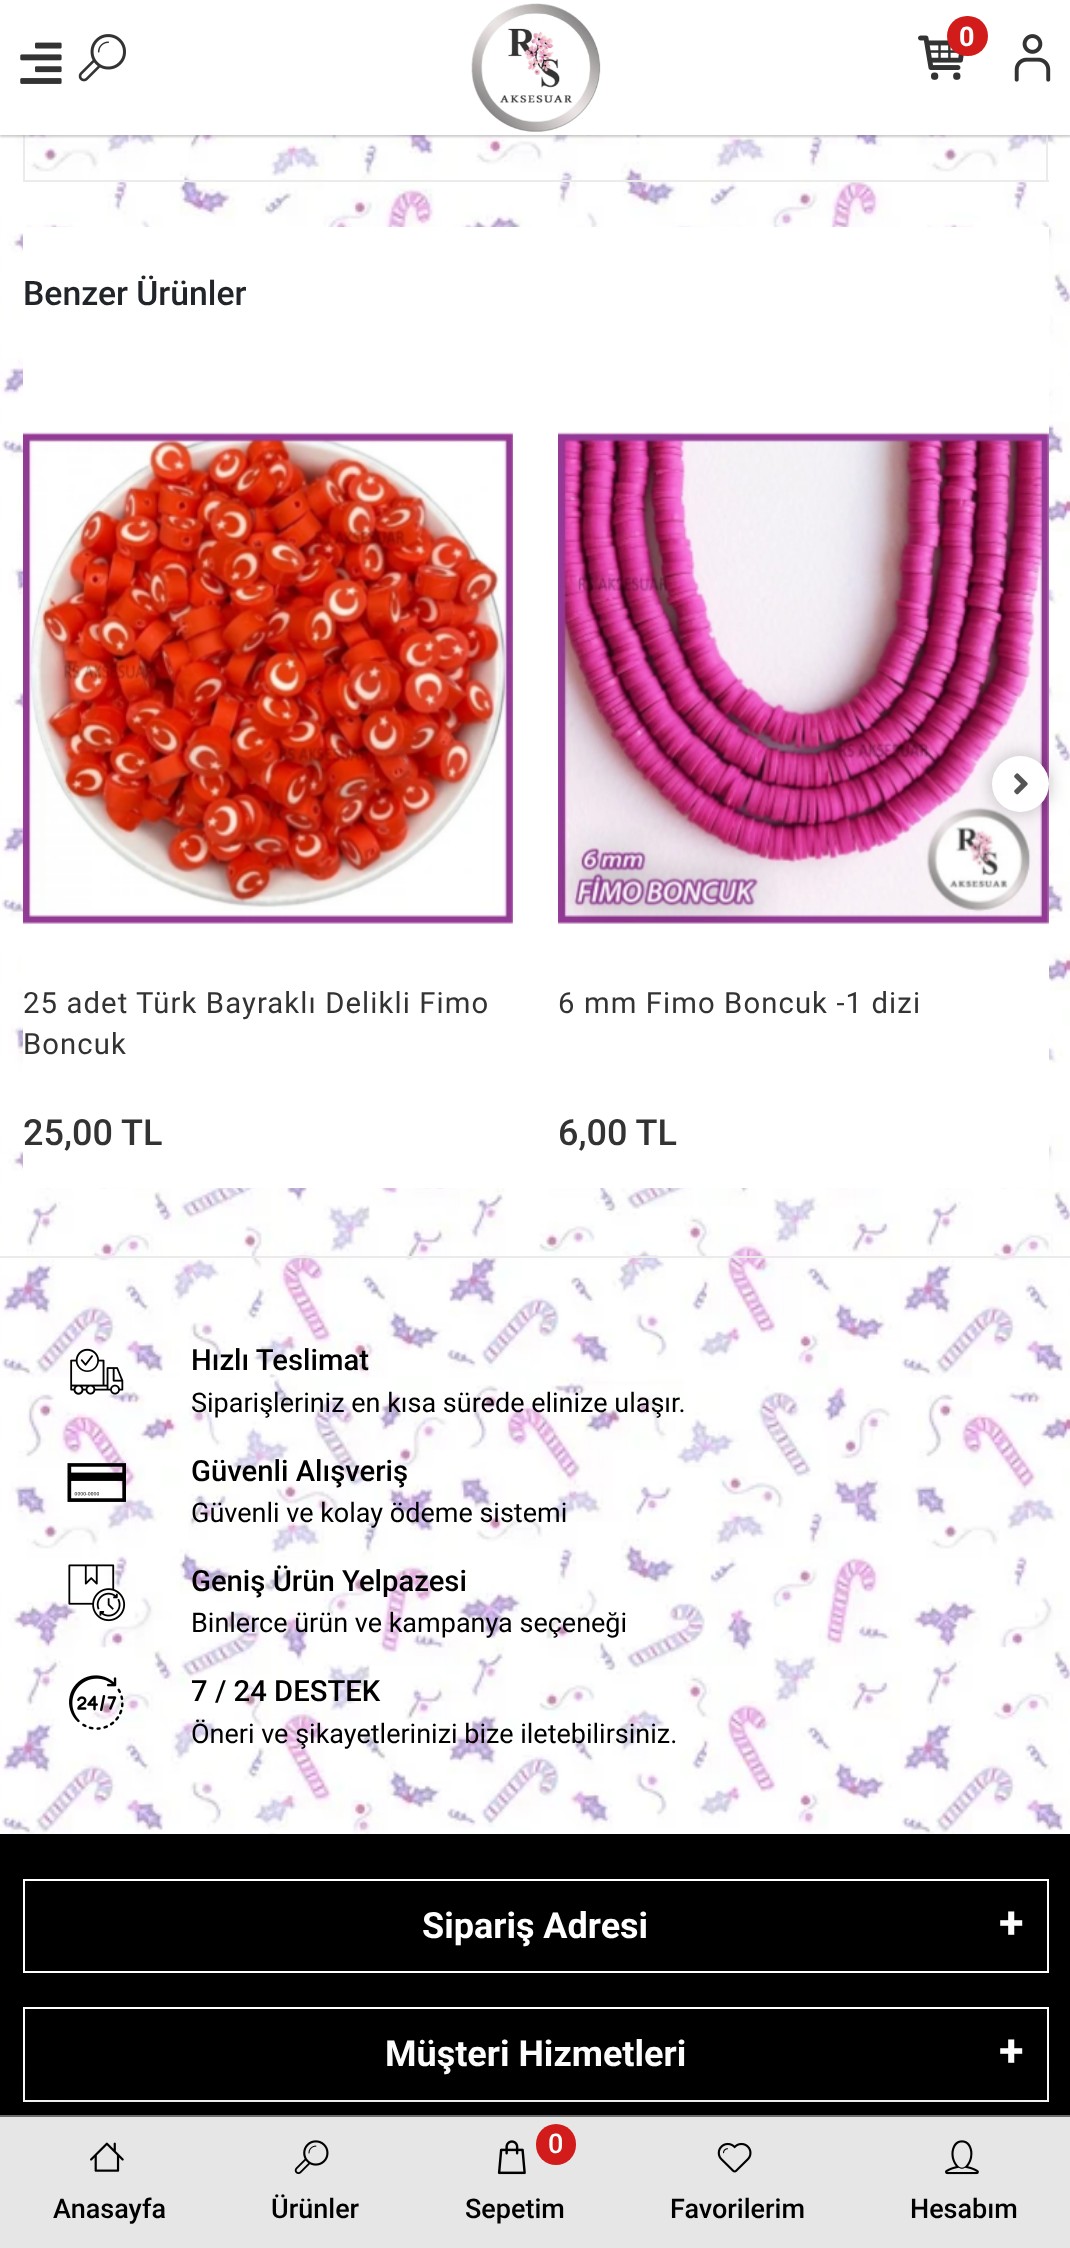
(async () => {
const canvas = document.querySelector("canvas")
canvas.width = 1070
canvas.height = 2248
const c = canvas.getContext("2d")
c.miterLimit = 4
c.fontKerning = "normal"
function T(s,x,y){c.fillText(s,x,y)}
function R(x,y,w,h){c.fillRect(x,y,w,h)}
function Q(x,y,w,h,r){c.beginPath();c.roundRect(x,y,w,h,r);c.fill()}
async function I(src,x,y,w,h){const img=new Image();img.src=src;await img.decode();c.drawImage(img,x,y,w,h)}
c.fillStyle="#fff"
R(0,0,1070,2248)
await I("1.png",0,135,1070,1699)
c.fillStyle="#ebebeb"
R(1046,135,2,47)
R(23,180,1026,2)
R(23,135,2,47)
c.fillStyle="#00000033"
c.filter="blur(1px)"
c.beginPath()
c.rect(0,2,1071,135)
c.fill()
c.filter="none"
c.fillStyle="#fff"
R(0,0,1070,135)
await I("2.png",20,42,42,42)
await I("3.png",78,34,48,48)
await I("4.png",471,3,130,129)
await I("5.png",918,35,46,45)
c.fillStyle="#d21c1c"
Q(947,16,41,40,20)
c.font="bold 27px Roboto"
c.fillStyle="#fff"
T("0",959,46)
await I("6.png",1014,34,37,48)
R(23,227,1026,961)
c.font="500 33.75px Roboto"
c.fillStyle="#212529"
T("Benzer Ürünler",23,305)
await I("9.png",558,432,491,492)
c.fillStyle="#0000003d"
c.filter="blur(9px)"
c.beginPath()
c.roundRect(992,756,57,56,28)
c.fill()
c.filter="none"
c.fillStyle="#fff"
Q(992,756,57,56,28)
await I("7.png",1014,773,14,22)
await I("8.png",23,432,490,492)
c.letterSpacing="1.1px"
c.font="29.25px Roboto"
c.fillStyle="#333"
T("25 adet Türk Bayraklı Delikli Fimo",23,1013)
T("Boncuk",23,1054)
c.letterSpacing="0px"
c.font="500 36px Roboto"
T("25,00 TL",23,1145)
c.letterSpacing="1.1px"
c.font="29.25px Roboto"
T("6 mm Fimo Boncuk -1 dizi",558,1013)
c.letterSpacing="0px"
c.font="500 36px Roboto"
T("6,00 TL",558,1145)
c.fillStyle="#ebebeb"
R(0,1256,1070,2)
await I("10.png",70,1348,54,47)
c.font="500 29.25px Roboto"
c.fillStyle="#000"
T("Hızlı Teslimat",191,1370)
c.font="27px Roboto"
T("Siparişleriniz en kısa sürede elinize ulaşır.",191,1412)
await I("11.png",67,1463,59,39)
c.font="500 29.25px Roboto"
T("Güvenli Alışveriş",191,1481)
c.font="27px Roboto"
T("Güvenli ve kolay ödeme sistemi",191,1522)
await I("12.png",68,1564,58,58)
c.font="500 29.25px Roboto"
T("Geniş Ürün Yelpazesi",191,1591)
c.font="27px Roboto"
T("Binlerce ürün ve kampanya seçeneği",191,1632)
await I("13.png",69,1675,55,55)
c.font="500 29.25px Roboto"
T("7 / 24 DESTEK",191,1701)
c.font="27px Roboto"
T("Öneri ve şikayetlerinizi bize iletebilirsiniz.",191,1743)
R(0,1834,1070,281)
c.strokeStyle="#fff"
c.lineWidth=2
c.strokeRect(24,1880,1024,92)
c.font="bold 36px Roboto"
c.fillStyle="#fff"
T("Sipariş Adresi",422,1938)
c.font="bold 45px Roboto"
T("+",999,1938)
c.strokeRect(24,2008,1024,93)
c.font="bold 36px Roboto"
T("Müşteri Hizmetleri",385,2066)
c.font="bold 45px Roboto"
T("+",999,2066)
c.fillStyle="#00000026"
c.filter="blur(34px)"
c.beginPath()
c.rect(11,2104,1049,112)
c.fill()
c.filter="none"
c.fillStyle="#e6e6e6"
R(0,2117,1070,131)
c.fillStyle="#6b6b6b"
R(0,2115,1070,2)
await I("14.png",90,2142,34,30)
c.font="500 27px Roboto"
c.fillStyle="#000"
T("Anasayfa",53,2218)
await I("15.png",294,2140,35,34)
T("Ürünler",271,2218)
await I("16.png",497,2140,29,35)
c.fillStyle="#d21c1c"
Q(536,2124,40,41,20)
c.fillStyle="#fff"
T("0",548,2153)
c.fillStyle="#000"
T("Sepetim",465,2218)
await I("17.png",717,2142,35,31)
T("Favorilerim",670,2218)
await I("18.png",945,2140,34,35)
T("Hesabım",910,2218)
})()
